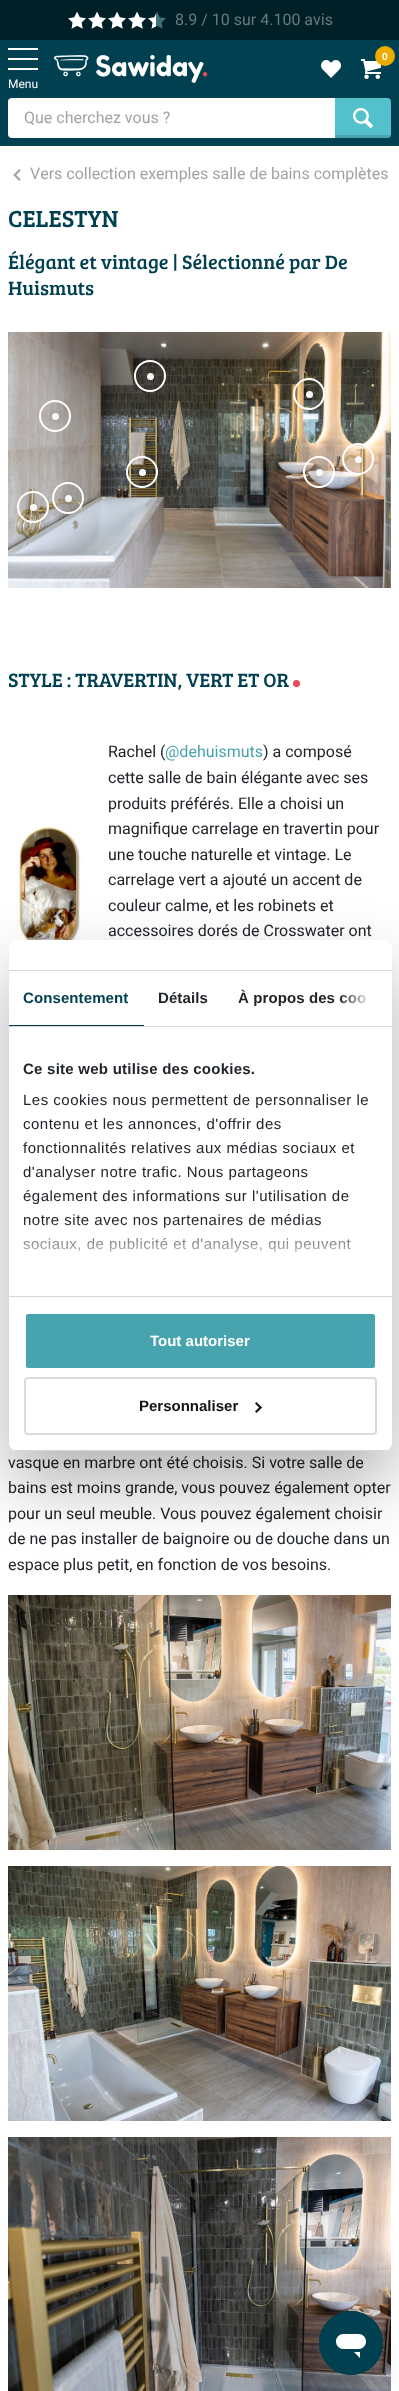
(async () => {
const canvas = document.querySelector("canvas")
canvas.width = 399
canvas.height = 2391
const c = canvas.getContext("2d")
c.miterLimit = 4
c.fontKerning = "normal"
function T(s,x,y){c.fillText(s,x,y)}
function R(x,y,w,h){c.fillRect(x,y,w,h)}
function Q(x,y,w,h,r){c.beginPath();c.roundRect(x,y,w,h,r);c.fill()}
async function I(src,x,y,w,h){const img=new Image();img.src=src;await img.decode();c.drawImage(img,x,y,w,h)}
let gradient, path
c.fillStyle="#fff"
R(0,0,399,2391)
c.fillStyle="#002028"
R(0,0,399,40)
await I("1.png",68,12,18,17)
await I("2.png",68,12,18,17)
await I("1.png",88,12,18,17)
await I("2.png",88,12,18,17)
await I("1.png",108,12,18,17)
await I("2.png",108,12,18,17)
await I("1.png",128,12,18,17)
await I("2.png",128,12,18,17)
await I("1.png",148,12,18,17)
await I("3.png",148,14,8,15)
c.font="16px Heebo"
c.fillStyle="#66797e"
T("8.9 / 10 sur 4.100 avis",175,25)
c.fillStyle="#004050"
R(0,40,399,106)
await I("4.png",54,55,153,28)
await I("5.png",361,59,20,20)
c.fillStyle="#ecad00"
c.beginPath()
c.arc(385,56,10,0,7)
c.fill()
c.font="bold 10px Heebo"
c.fillStyle="#f8f9fa"
T("0",382,60)
await I("6.png",321,60,20,18)
c.fillStyle="#fff"
R(8,48,30,2)
R(8,58,30,2)
R(8,68,30,2)
c.font="12px Heebo"
T("Menu",8,88)
c.beginPath()
c.roundRect(8,98,328,40,[4,0,0,4])
c.fill()
c.font="16px Heebo"
c.fillStyle="#a2a2a2"
T("Que cherchez vous ?",24,123)
c.fillStyle="#53c0cb"
c.beginPath()
c.roundRect(335,98,56,40,[0,4,4,0])
c.fill()
await I("7.png",353,108,20,20)
c.save()
c.beginPath()
c.roundRect(335,98,56,40,[0,4,4,0])
c.clip()
c.fillStyle="#47a3ad"
R(335,135,56,3)
c.restore()
await I("8.png",13,169,8,12)
c.fillStyle="#a2a2a2"
T("Vers collection exemples salle de bains complètes",30,179)
c.font="24px Bree Serif"
c.fillStyle="#004050"
T("CELESTYN",8,227)
c.font="20px Bree Serif"
T("Élégant et vintage | Sélectionné par De",8,269)
T("Huismuts",8,295)
await I("9.png",8,332,383,256)
c.beginPath()
c.arc(55,416,15,0,7)
c.strokeStyle="#fff"
c.lineWidth=2
c.stroke()
c.fillStyle="#44444499"
c.filter="blur(5px)"
c.beginPath()
c.roundRect(52,413,7,7,3.5)
c.fill()
c.filter="none"
c.fillStyle="#f8f9fa"
c.beginPath()
c.arc(55.5,416.5,3.5,0,7)
c.fill()
c.beginPath()
c.arc(150,376,15,0,7)
c.stroke()
c.beginPath()
c.arc(150.5,376.5,3.5,0,7)
c.fill()
c.beginPath()
c.arc(309,394,15,0,7)
c.stroke()
c.beginPath()
c.arc(309.5,394.5,3.5,0,7)
c.fill()
c.beginPath()
c.arc(142,472,15,0,7)
c.stroke()
c.beginPath()
c.arc(142.5,472.5,3.5,0,7)
c.fill()
c.beginPath()
c.arc(319,472,15,0,7)
c.stroke()
c.fillStyle="#44444499"
c.filter="blur(5px)"
c.beginPath()
c.roundRect(316,469,7,7,3.5)
c.fill()
c.filter="none"
c.fillStyle="#f8f9fa"
c.beginPath()
c.arc(319.5,472.5,3.5,0,7)
c.fill()
c.beginPath()
c.arc(358,459,15,0,7)
c.stroke()
c.fillStyle="#44444499"
c.filter="blur(5px)"
c.beginPath()
c.roundRect(355,456,7,7,3.5)
c.fill()
c.filter="none"
c.fillStyle="#f8f9fa"
c.beginPath()
c.arc(358.5,459.5,3.5,0,7)
c.fill()
c.beginPath()
c.arc(33,507,15,0,7)
c.stroke()
c.beginPath()
c.arc(68,498,15,0,7)
c.stroke()
c.fillStyle="#44444499"
c.filter="blur(5px)"
c.beginPath()
c.roundRect(30,504,7,7,3.5)
c.fill()
c.filter="none"
c.fillStyle="#f8f9fa"
c.beginPath()
c.arc(33.5,507.5,3.5,0,7)
c.fill()
c.fillStyle="#44444499"
c.filter="blur(5px)"
c.beginPath()
c.roundRect(65,495,7,7,3.5)
c.fill()
c.filter="none"
c.fillStyle="#f8f9fa"
c.beginPath()
c.arc(68.5,498.5,3.5,0,7)
c.fill()
c.fillStyle="#004050"
T("STYLE : TRAVERTIN, VERT ET OR",8,687)
c.fillStyle="#e94b57"
c.beginPath()
c.arc(296.5,683.5,3.5,0,7)
c.fill()
await I("10.png",16,826,66,115)
c.font="16px Heebo"
c.fillStyle="#212529"
T("Rachel (",108,757)
c.fillStyle="#47a3ad"
T("@dehuismuts",165,757)
c.fillStyle="#212529"
T(") a composé",263,757)
T("cette salle de bain élégante avec ses",108,783)
T("produits préférés. Elle a choisi un",108,809)
T("magnifique carrelage en travertin pour",108,834)
T("une touche naturelle et vintage. Le",108,860)
T("carrelage vert a ajouté un accent de",108,885)
T("couleur calme, et les robinets et",108,911)
T("accessoires dorés de Crosswater ont",108,936)
T("vasque en marbre ont été choisis. Si votre salle de",8,1468)
T("bains est moins grande, vous pouvez également opter",8,1493)
T("pour un seul meuble. Vous pouvez également choisir",8,1519)
T("de ne pas installer de baignoire ou de douche dans un",8,1544)
T("espace plus petit, en fonction de vos besoins.",8,1570)
await I("11.png",8,1595,383,255)
await I("12.png",8,1866,383,255)
await I("13.png",8,2137,383,254)
c.fillStyle="#0000004d"
c.filter="blur(34px)"
c.beginPath()
c.roundRect(9,972,383,511,8)
c.fill()
c.filter="none"
c.fillStyle="#fff"
Q(9,940,383,511,8)
c.fillStyle="#d6d6d6"
R(9,970,383,1)
R(9,1026,383,1)
c.fillStyle="#004050"
R(9,1025,135,1)
c.letterSpacing="0.1px"
c.font="bold 15px Liberation Sans"
T("Consentement",23,1003)
c.fillStyle="#212529"
T("Détails",158,1003)
T("À propos des coo",238,1003)
gradient = c.createLinearGradient(392,999,339,999)
gradient.addColorStop(0,"#fff")
gradient.addColorStop(.5,"#ffffffcc")
gradient.addColorStop(1,"#ffffff00")
c.fillStyle = gradient
R(340,994,26,10)
c.fillStyle="#d6d6d6"
R(9,1296,383,1)
c.letterSpacing="0.25px"
c.fillStyle="#212529"
T("Ce site web utilise des cookies.",23,1074)
c.letterSpacing="0.5px"
c.font="15px Liberation Sans"
T("Les cookies nous permettent de personnaliser le",23,1105)
T("contenu et les annonces, d'offrir des",23,1129)
T("fonctionnalités relatives aux médias sociaux et",23,1153)
T("d'analyser notre trafic. Nous partageons",23,1177)
T("également des informations sur l'utilisation de",23,1201)
T("notre site avec nos partenaires de médias",23,1225)
T("sociaux, de publicité et d'analyse, qui peuvent",23,1249)
gradient = c.createLinearGradient(194,1296,194,1221)
gradient.addColorStop(0,"#fff")
gradient.addColorStop(.5,"#ffffffcc")
gradient.addColorStop(1,"#ffffff00")
c.fillStyle = gradient
R(23,1222,328,31)
c.save()
c.beginPath()
c.roundRect(9,940,383,511,8)
c.clip()
c.fillStyle="#d6d6d6"
R(9,1450,383,1)
c.restore()
c.fillStyle="#47a3ad"
c.beginPath()
c.roundRect(25,1313,351,56,3)
c.fill()
c.stroke()
c.letterSpacing="0px"
c.font="bold 15px Liberation Sans"
c.fillStyle="#fff"
T("Tout autoriser",150,1346)
c.beginPath()
c.roundRect(25,1378,351,56,3)
c.strokeStyle="#dadbde"
c.stroke()
c.fillStyle="#141414"
T("Personnaliser",139,1411)
path = new Path2D("M256.5 1402l5.5 5.5l-1.5 1.5l-5.5-5.5z")
c.fill(path)
path = new Path2D("M260.5 1406l1.5 1.5l-5.5 5.5l-1.5-1.5z")
c.fill(path)
c.fillStyle="#17494d26"
c.filter="blur(15px)"
c.beginPath()
c.roundRect(319,2331,64,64,32)
c.fill()
c.filter="none"
await I("14.png",319,2311,64,64)
})()
